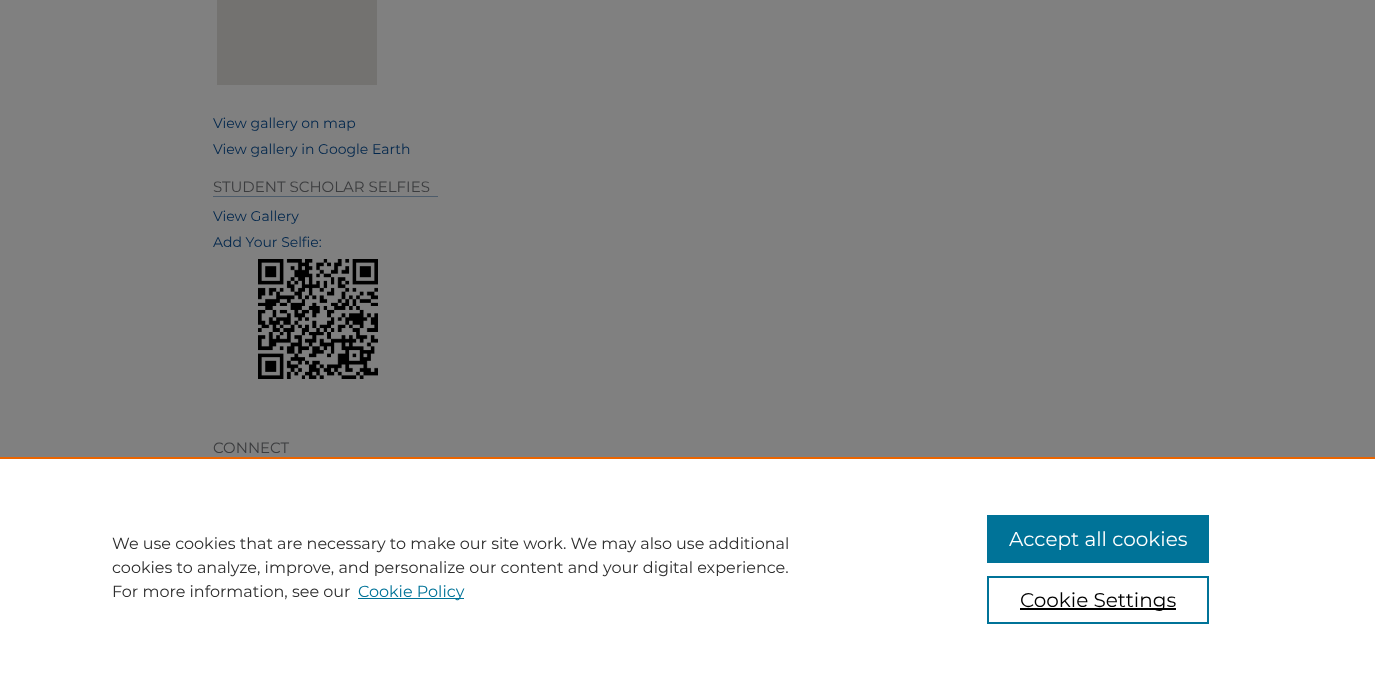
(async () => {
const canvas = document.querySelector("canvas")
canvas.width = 1375
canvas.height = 677
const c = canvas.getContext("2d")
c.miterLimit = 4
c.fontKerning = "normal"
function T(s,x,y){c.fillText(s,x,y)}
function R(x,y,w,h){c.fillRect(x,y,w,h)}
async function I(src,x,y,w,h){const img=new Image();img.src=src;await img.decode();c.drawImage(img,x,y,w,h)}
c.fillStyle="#808080"
R(0,0,1375,677)
c.fillStyle="#737270"
R(217,0,160,85)
c.font="14px Montserrat"
c.fillStyle="#00264c"
T("View gallery on map",213,128)
T("View gallery in Google Earth",213,154)
c.fillStyle="#4d5c6b"
R(213,196,225,1)
c.font="15px Montserrat"
c.fillStyle="#3b3c3e"
T("STUDENT SCHOLAR SELFIES",213,192)
c.font="14px Montserrat"
c.fillStyle="#00264c"
T("View Gallery",213,221)
T("Add Your Selfie:",213,247)
await I("1.png",258,259,120,120)
c.font="15px Montserrat"
c.fillStyle="#3b3c3e"
T("CONNECT",213,453)
c.fillStyle="#fff"
R(0,459,1375,218)
c.fillStyle="#eb6500"
R(0,457,1375,2)
c.font="16px Montserrat"
c.fillStyle="#2e2e2e"
T("We use cookies that are necessary to make our site work. We may also use additional",112,549)
T("cookies to analyze, improve, and personalize our content and your digital experience.",112,573)
T("For more information, see our",112,597)
c.fillStyle="#007398"
R(358,598,106,1)
T("Cookie Policy",358,597)
R(987,515,222,48)
c.font="20px Montserrat"
c.fillStyle="#fff"
T("Accept all cookies",1009,546)
c.strokeStyle="#007398"
c.lineWidth=2
c.strokeRect(988,577,220,46)
c.fillStyle="#000"
R(1020,608,156,2)
T("Cookie Settings",1020,607)
})()
